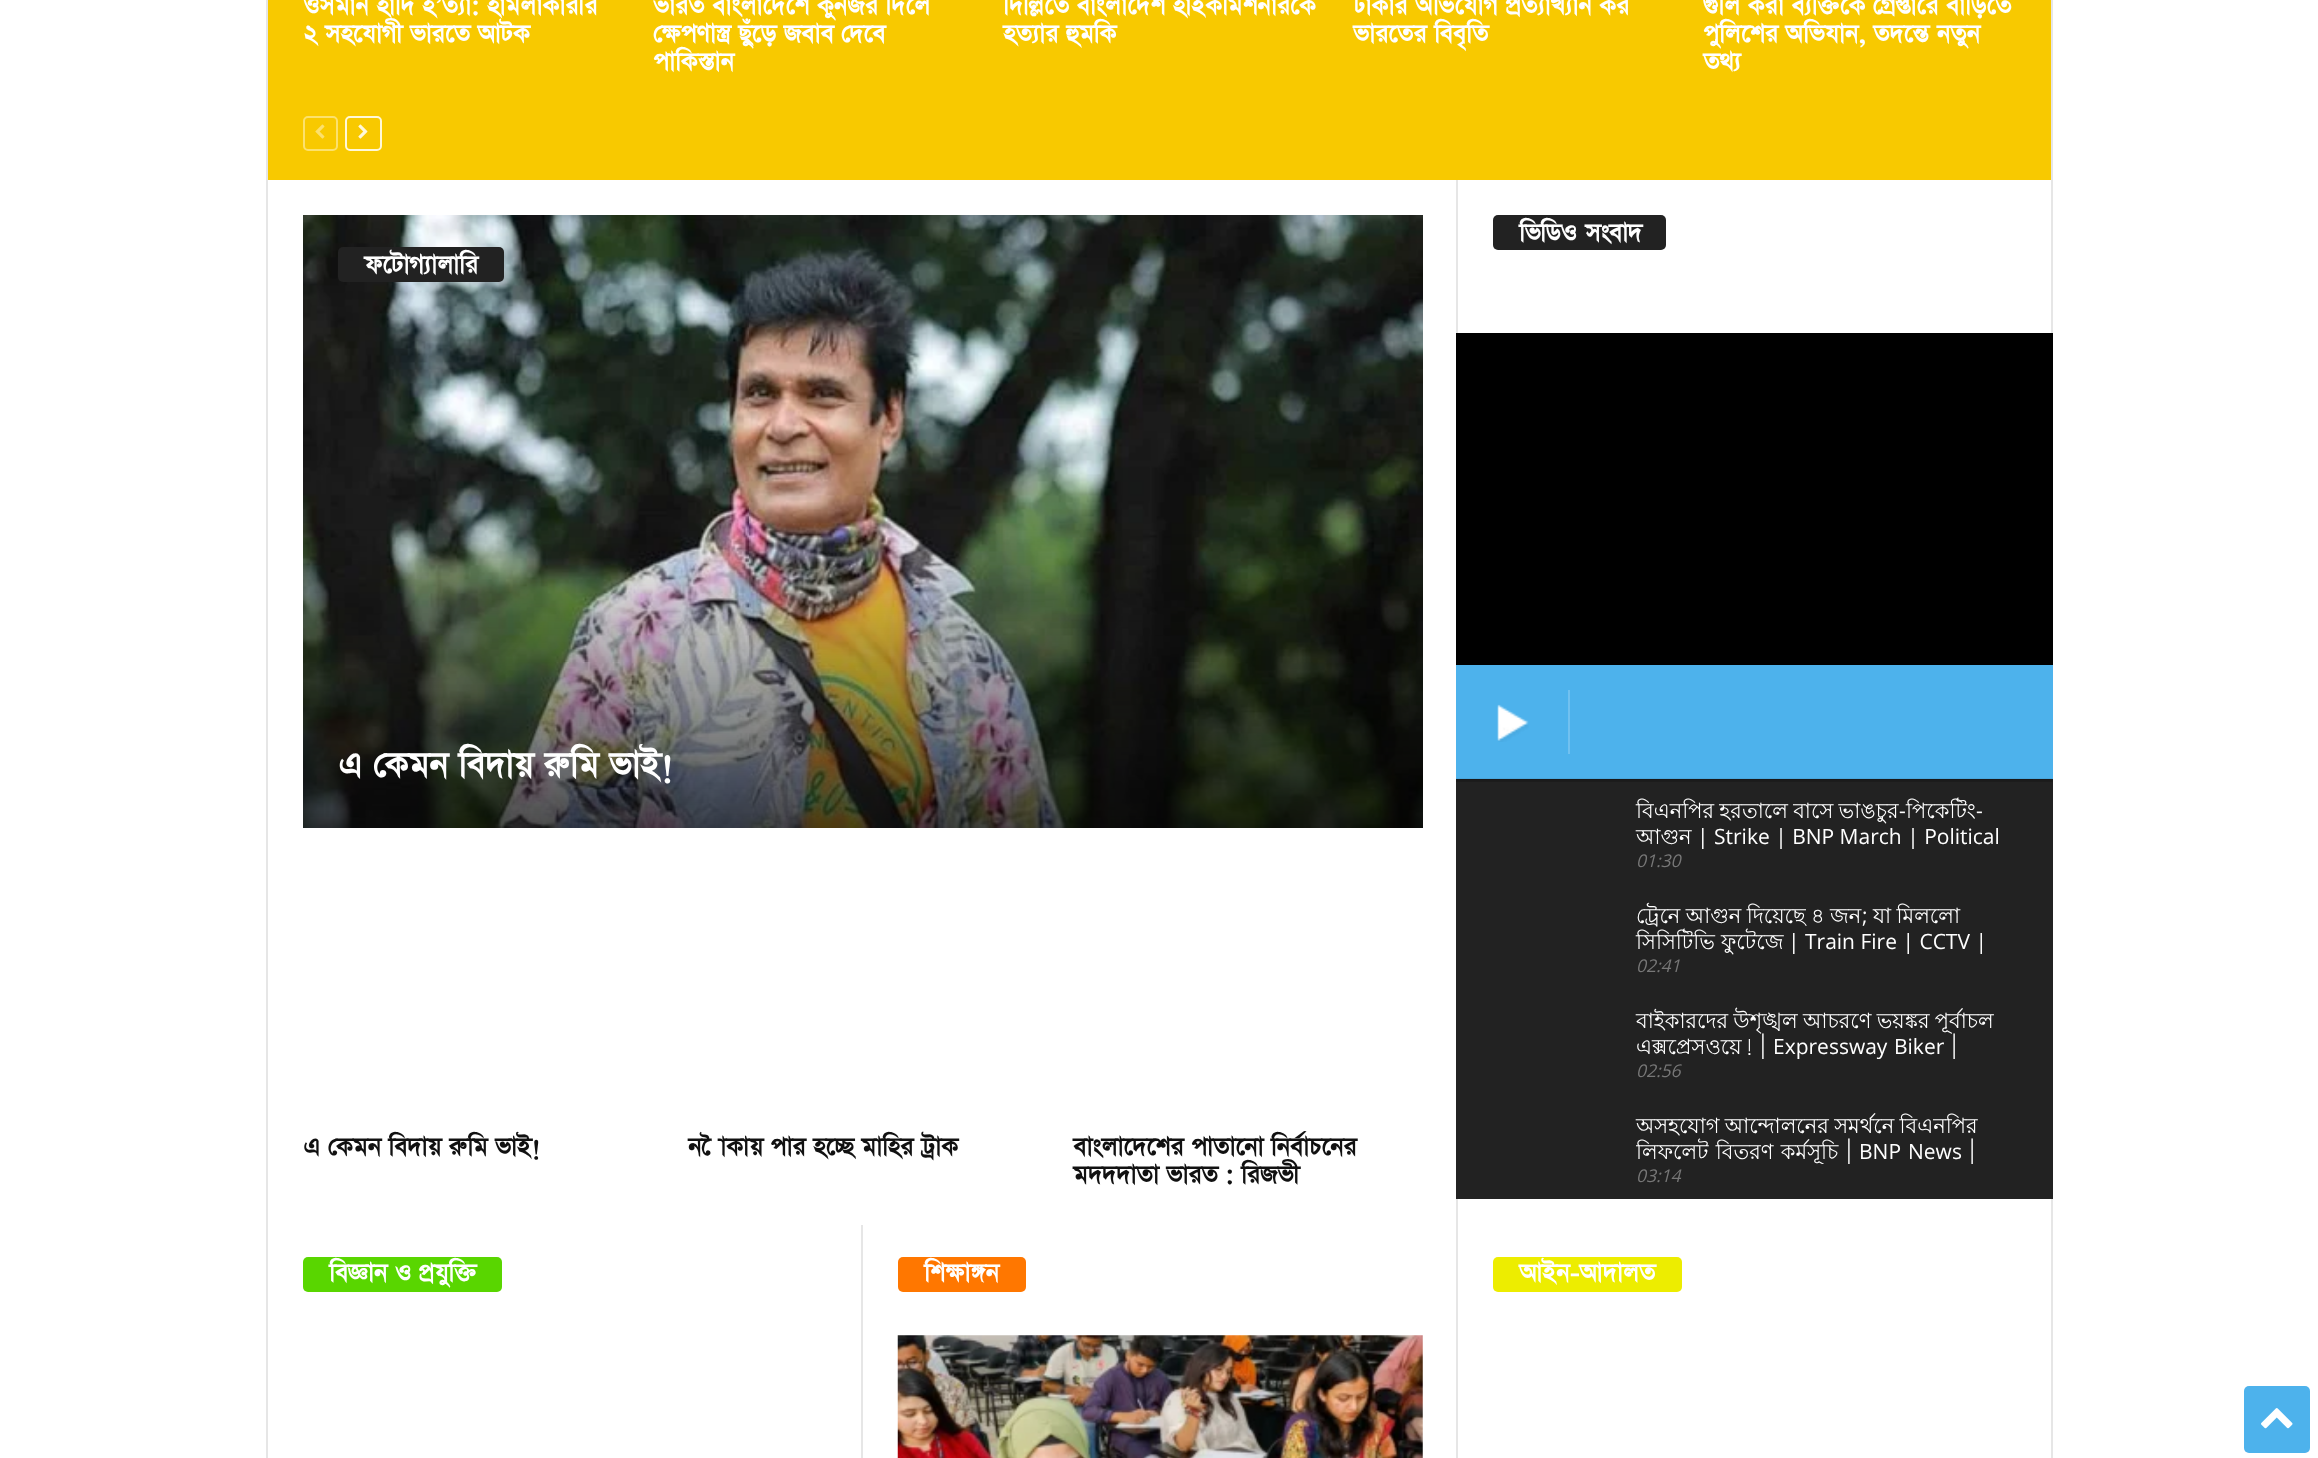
(async () => {
const canvas = document.querySelector("canvas")
canvas.width = 2318
canvas.height = 1458
const c = canvas.getContext("2d")
c.miterLimit = 4
c.fontKerning = "normal"
function T(s,x,y){c.fillText(s,x,y)}
function R(x,y,w,h){c.fillRect(x,y,w,h)}
function Q(x,y,w,h,r){c.beginPath();c.roundRect(x,y,w,h,r);c.fill()}
async function I(src,x,y,w,h){const img=new Image();img.src=src;await img.decode();c.drawImage(img,x,y,w,h)}
c.fillStyle="#fff"
R(0,0,2318,1458)
c.fillStyle="#e6e6e6"
R(266,0,2,1458)
c.fillStyle="#f8c900"
R(268,0,1783,180)
c.font="bold 29.75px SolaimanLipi"
c.fillStyle="#fff"
T("ওসমান হাদি হ’ত্যা: হামলাকারীর",303,15)
T("২ সহযোগী ভারতে আটক",303,43)
T("ভারত বাংলাদেশে কুনজর দিলে",653,15)
T("ক্ষেপণাস্ত্র ছুঁড়ে জবাব দেবে",653,43)
T("পাকিস্তান",653,71)
T("দিল্লিতে বাংলাদেশ হাইকমিশনারকে",1003,15)
T("হত্যার হুমকি",1003,43)
T("ঢাকার অভিযোগ প্রত্যাখ্যান কর",1353,15)
T("ভারতের বিবৃতি",1353,43)
T("গুলি করা ব্যক্তিকে গ্রেপ্তারে বাড়িতে",1703,15)
T("পুলিশের অভিযান, তদন্তে নতুন",1703,43)
T("তথ্য",1703,71)
c.beginPath()
c.roundRect(304,117,33,33,4)
c.strokeStyle="#fce16d"
c.lineWidth=2
c.stroke()
await I("1.png",315,124,10,15)
c.beginPath()
c.roundRect(346,117,35,33,4)
c.strokeStyle="#fff8d9"
c.stroke()
await I("2.png",358,124,10,15)
await I("3.png",303,215,1120,613)
c.fillStyle="#222"
Q(338,247,166,35,5)
c.fillStyle="#fff"
T("ফটোগ্যালারি",364,274)
c.font="bold 42px SolaimanLipi"
T("এ কেমন বিদায় রুমি ভাই!",338,778)
c.font="bold 29.75px SolaimanLipi"
c.fillStyle="#111"
T("এ কেমন বিদায় রুমি ভাই!",303,1156)
T("নৌকায় পার হচ্ছে মাহির ট্রাক",688,1156)
T("বাংলাদেশের পাতানো নির্বাচনের",1073,1156)
T("মদদদাতা ভারত : রিজভী",1073,1184)
c.fillStyle="#e6e6e6"
R(1456,180,2,1278)
c.fillStyle="#222"
Q(1493,215,173,35,5)
c.letterSpacing="-0.6px"
c.wordSpacing="2px"
c.fillStyle="#fff"
T("ভিডিও সংবাদ",1519,242)
c.fillStyle="#e6e6e6"
R(2051,0,2,1458)
c.fillStyle="#000"
R(1456,333,597,332)
c.fillStyle="#222"
R(1456,779,597,420)
c.fillStyle="#4db2ec"
R(1456,665,597,114)
await I("4.png",1497,704,32,38)
c.fillStyle="#71c1f0"
R(1568,690,2,64)
await I("5.png",1456,778,597,4)
c.letterSpacing="0px"
c.wordSpacing="-0.5px"
c.font="21px Lohit Bengali"
c.fillStyle="#fff"
T("বিএনপির হরতালে বাসে ভাঙচুর",1636,818)
c.wordSpacing="0px"
c.font="21px Open Sans"
T("-",1899,818)
c.font="21px Lohit Bengali"
T("পিকেটিং",1906,818)
c.font="21px Open Sans"
T("-",1976,818)
c.font="21px Lohit Bengali"
T("আগুন",1636,844)
c.font="21px Open Sans"
T("| Strike | BNP March | Political",1697,844)
c.font="italic 17.5px Open Sans"
c.fillStyle="#777"
T("01:30",1636,867)
c.wordSpacing="-0.5px"
c.font="21px Lohit Bengali"
c.fillStyle="#fff"
T("ট্রেনে আগুন দিয়েছে ৪ জন",1636,923)
c.wordSpacing="0px"
c.font="21px Open Sans"
T(";",1862,923)
c.wordSpacing="-0.5px"
c.font="21px Lohit Bengali"
T("যা মিললো",1873,923)
c.wordSpacing="0px"
T("সিসিটিভি",1636,949)
T("ফুটেজে",1721,949)
c.save()
c.beginPath()
c.rect(1636,901,364,53)
c.clip()
c.font="21px Open Sans"
T("| Train Fire | CCTV |",1788,949)
c.restore()
c.font="italic 17.5px Open Sans"
c.fillStyle="#777"
T("02:41",1636,972)
c.wordSpacing="-0.5px"
c.font="21px Lohit Bengali"
c.fillStyle="#fff"
T("বাইকারদের উশৃঙ্খল আচরণে ভয়ঙ্কর পূর্বাচল",1636,1028)
c.save()
c.beginPath()
c.rect(1636,1006,364,53)
c.clip()
c.wordSpacing="1px"
T("এক্সপ্রেসওয়ে! |",1636,1054)
c.restore()
c.wordSpacing="0px"
c.font="21px Open Sans"
T("Expressway",1773,1054)
T("Biker",1894,1054)
c.save()
c.beginPath()
c.rect(1636,1006,364,53)
c.clip()
c.font="21px Lohit Bengali"
T("|",1951,1054)
c.restore()
c.font="italic 17.5px Open Sans"
c.fillStyle="#777"
T("02:56",1636,1077)
c.wordSpacing="-0.5px"
c.font="21px Lohit Bengali"
c.fillStyle="#fff"
T("অসহযোগ আন্দোলনের সমর্থনে বিএনপির",1636,1133)
c.save()
c.beginPath()
c.rect(1636,1111,364,53)
c.clip()
c.wordSpacing="1.5px"
T("লিফলেট বিতরণ কর্মসূচি |",1636,1159)
c.restore()
c.wordSpacing="0px"
c.font="21px Open Sans"
T("BNP",1859,1159)
T("News",1908,1159)
c.save()
c.beginPath()
c.rect(1636,1111,364,53)
c.clip()
c.font="21px Lohit Bengali"
T("|",1969,1159)
c.restore()
c.font="italic 17.5px Open Sans"
c.fillStyle="#777"
T("03:14",1636,1182)
c.fillStyle="#59d600"
Q(303,1257,199,35,5)
c.font="bold 29.75px SolaimanLipi"
c.fillStyle="#fff"
T("বিজ্ঞান ও প্রযুক্তি",329,1282)
c.fillStyle="#e6e6e6"
R(861,1225,2,233)
c.fillStyle="#f70"
Q(898,1257,128,35,5)
c.fillStyle="#fff"
T("শিক্ষাঙ্গন",924,1282)
await I("6.png",897,1335,526,123)
c.fillStyle="#eded00"
Q(1493,1257,189,35,5)
c.fillStyle="#fff"
T("আইন-আদালত",1519,1282)
c.fillStyle="#4db2ec"
Q(2244,1386,66,67,5)
await I("7.png",2261,1408,32,21)
})()
